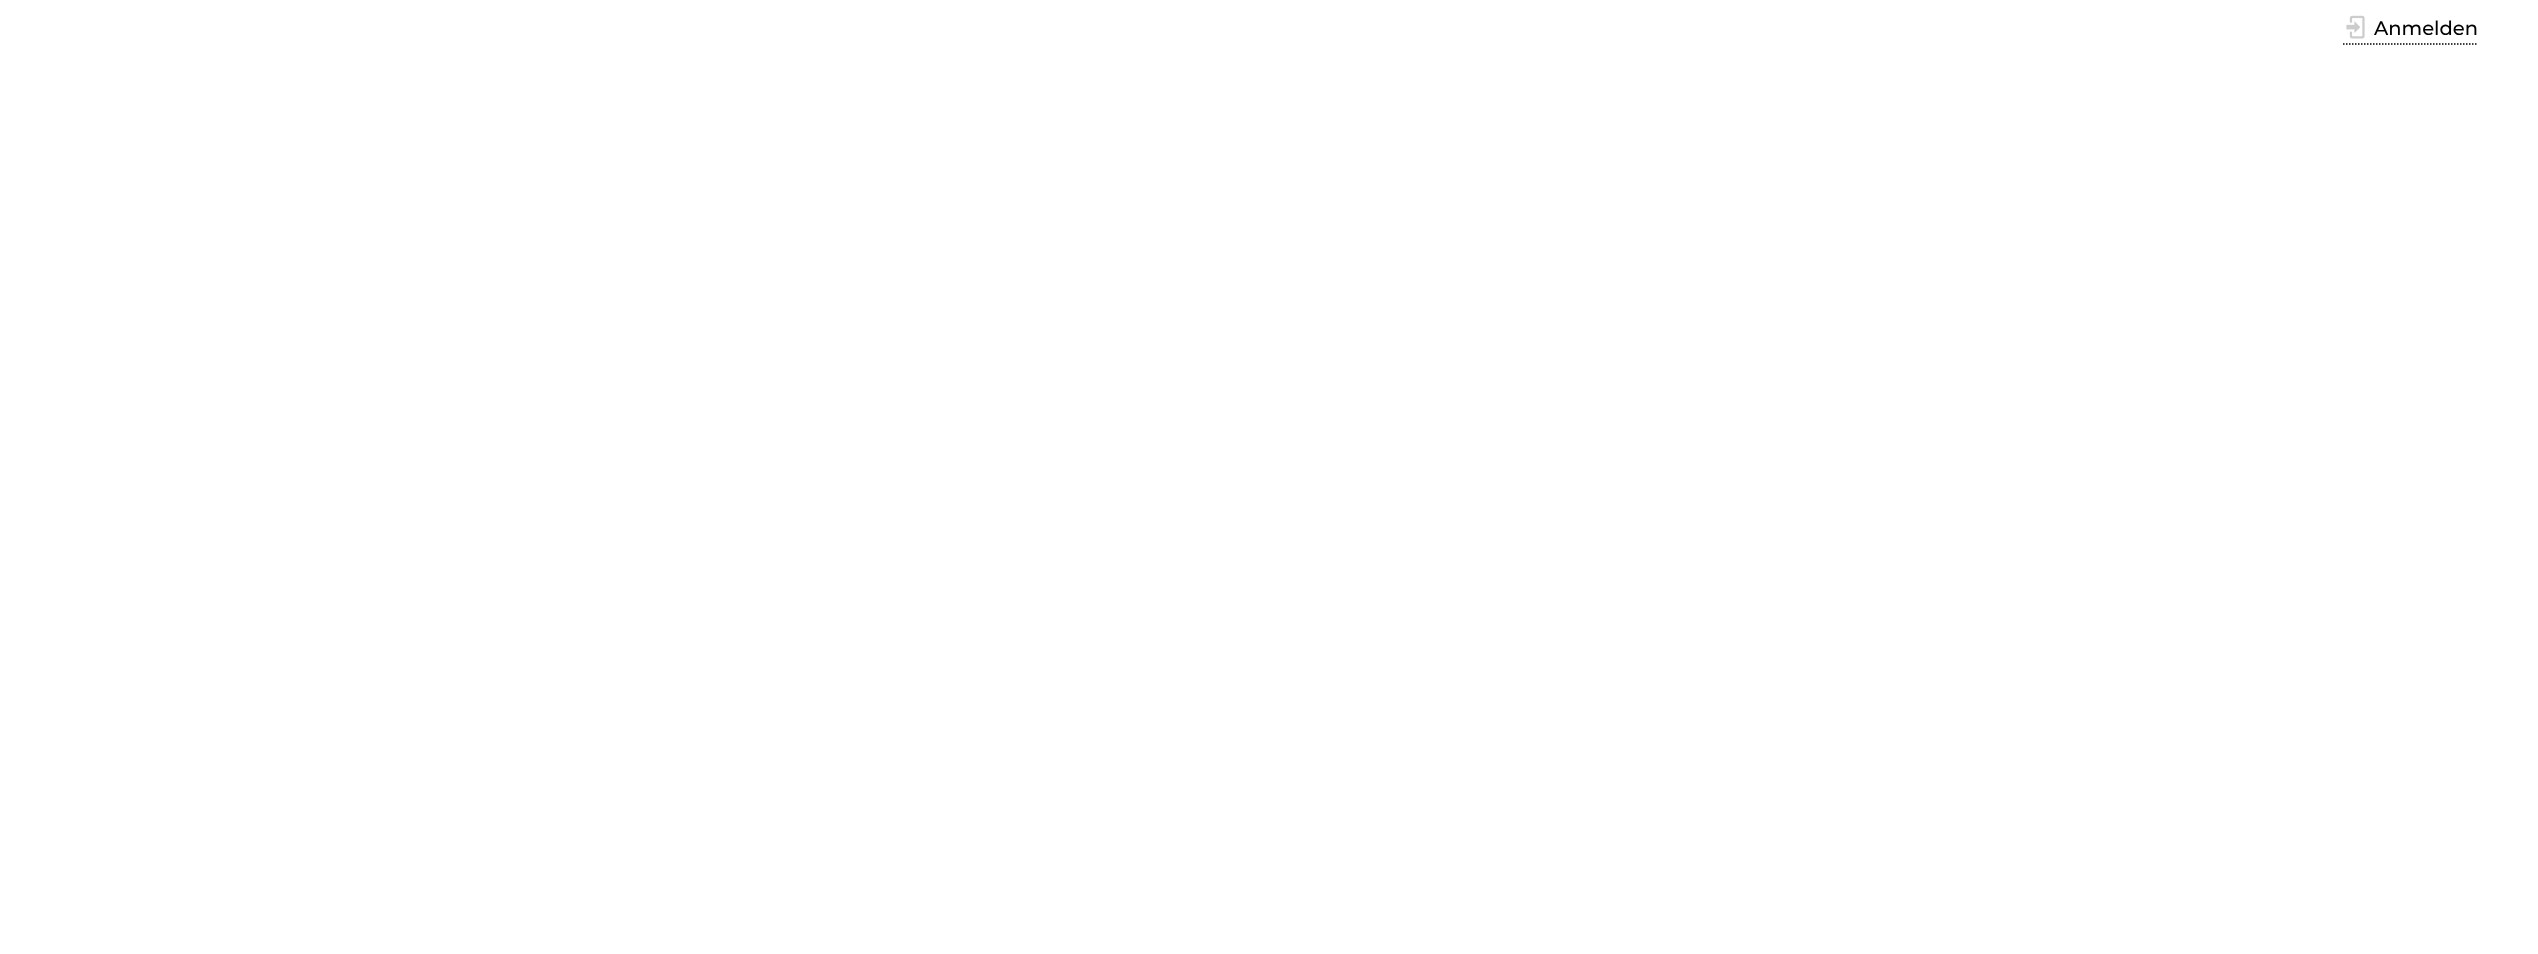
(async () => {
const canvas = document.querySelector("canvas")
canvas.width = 2538
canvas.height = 954
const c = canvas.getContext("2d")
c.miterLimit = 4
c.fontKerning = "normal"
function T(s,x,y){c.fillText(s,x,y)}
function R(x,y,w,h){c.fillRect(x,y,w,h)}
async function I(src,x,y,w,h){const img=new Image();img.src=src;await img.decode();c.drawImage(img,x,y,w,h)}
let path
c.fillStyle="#fff"
R(0,0,2538,954)
path = new Path2D("M2343 44h135")
c.strokeStyle="#000"
c.lineWidth=1.5
c.setLineDash([1.5,1.5])
c.stroke(path)
await I("1.png",2346,15,19,24)
c.font="100 19.5px Montserrat"
c.fillStyle="#000"
T("Anmelden",2374,35)
})()
